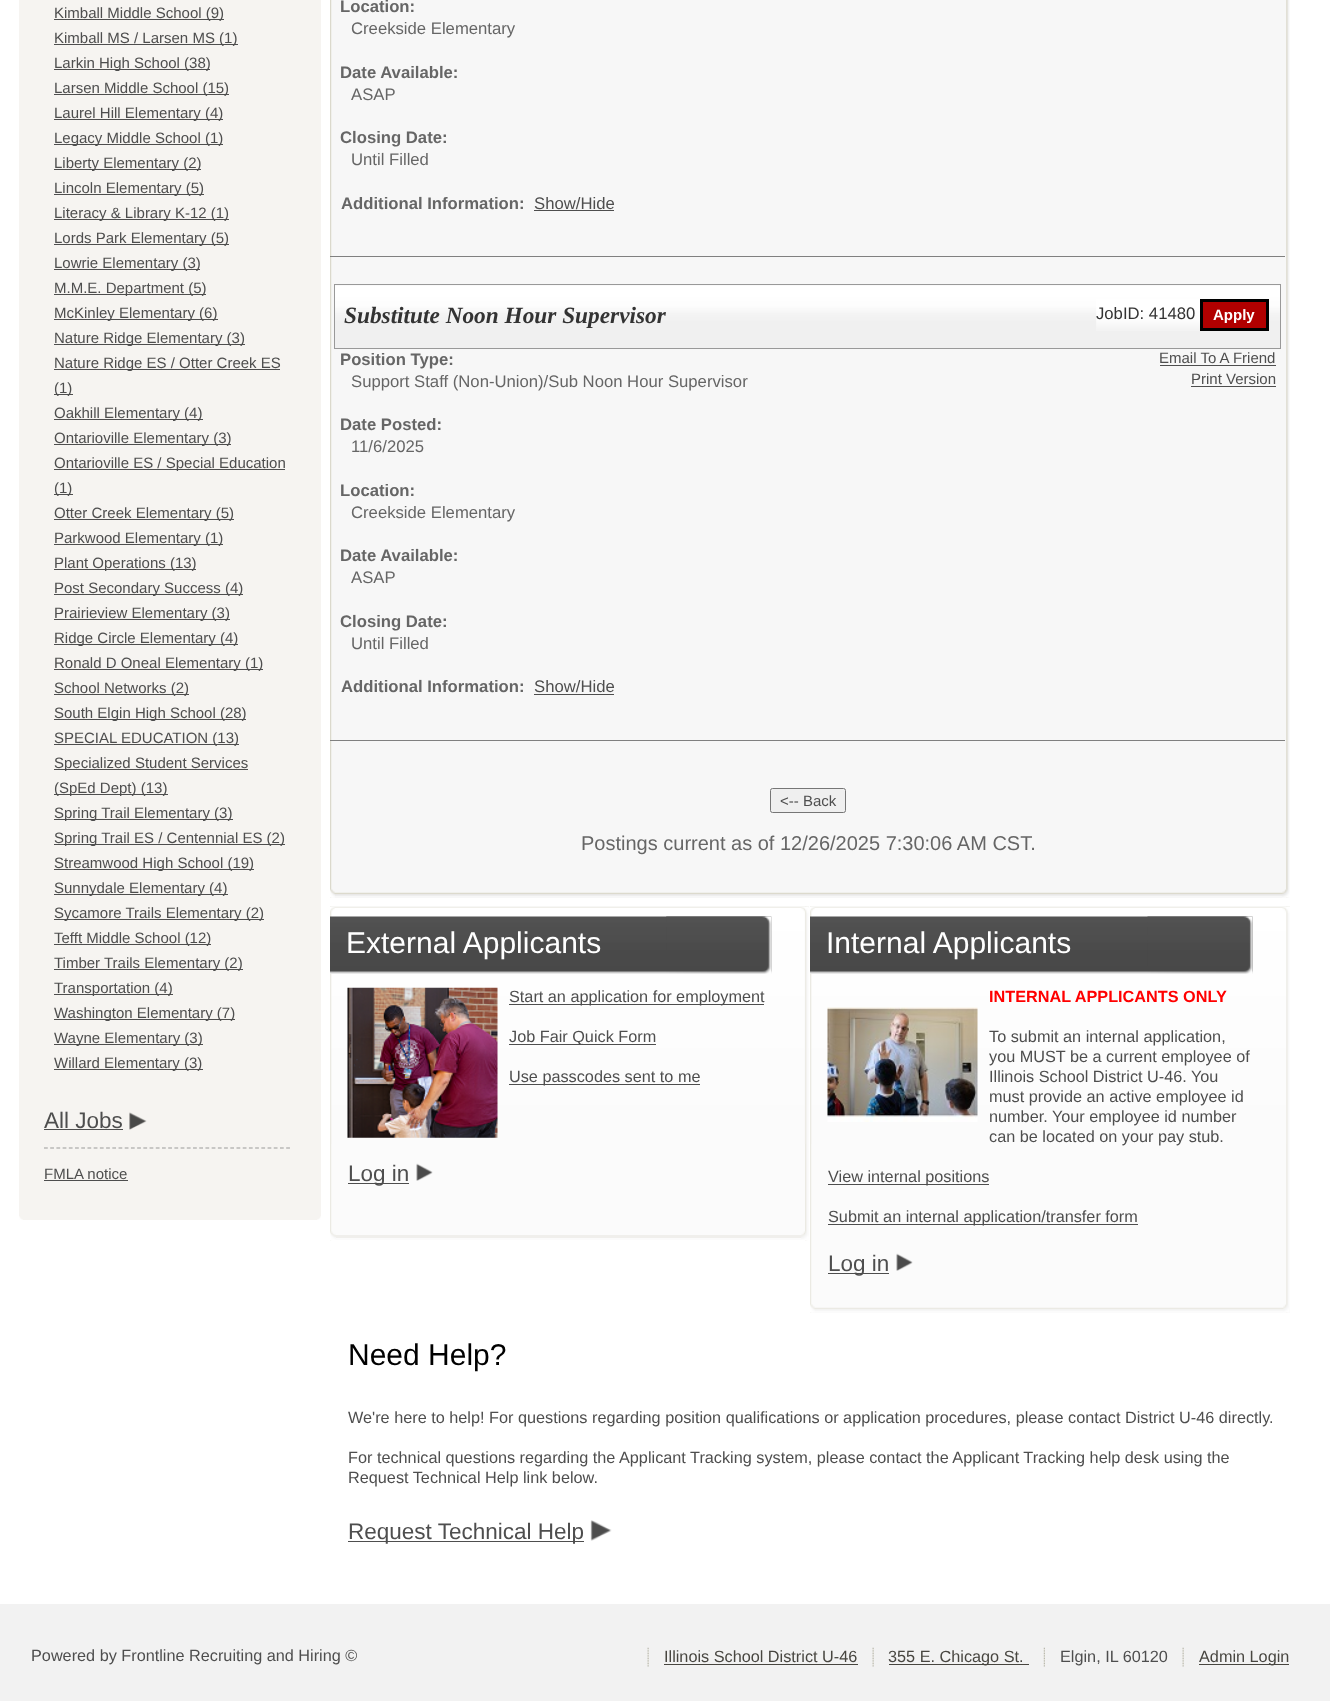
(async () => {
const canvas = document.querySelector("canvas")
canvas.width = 1330
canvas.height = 1701
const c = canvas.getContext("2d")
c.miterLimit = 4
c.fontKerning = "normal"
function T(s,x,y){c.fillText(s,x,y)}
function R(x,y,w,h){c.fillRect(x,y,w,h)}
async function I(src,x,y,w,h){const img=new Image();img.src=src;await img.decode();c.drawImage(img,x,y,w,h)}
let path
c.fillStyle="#fff"
R(0,0,1330,1701)
c.fillStyle="#f6f4f1"
R(19,0,302,1220)
await I("1.png",317,1216,4,4)
await I("2.png",19,1216,4,4)
c.fillStyle="#4e4e4e"
R(54,19,170,1)
c.font="15px Liberation Sans"
T("Kimball Middle School (9)",54,18)
R(54,44,184,1)
T("Kimball MS / Larsen MS (1)",54,43)
R(54,69,156,1)
T("Larkin High School (38)",54,68)
R(54,94,175,1)
T("Larsen Middle School (15)",54,93)
R(54,119,169,1)
T("Laurel Hill Elementary (4)",54,118)
R(54,144,169,1)
T("Legacy Middle School (1)",54,143)
R(54,169,147,1)
T("Liberty Elementary (2)",54,168)
R(54,194,150,1)
T("Lincoln Elementary (5)",54,193)
R(54,219,175,1)
T("Literacy & Library K-12 (1)",54,218)
R(54,244,175,1)
T("Lords Park Elementary (5)",54,243)
R(54,269,146,1)
T("Lowrie Elementary (3)",54,268)
R(54,294,152,1)
T("M.M.E. Department (5)",54,293)
R(54,319,164,1)
T("McKinley Elementary (6)",54,318)
R(54,344,191,1)
T("Nature Ridge Elementary (3)",54,343)
R(54,369,226,1)
T("Nature Ridge ES / Otter Creek ES",54,368)
R(54,394,19,1)
T("(1)",54,393)
R(54,419,149,1)
T("Oakhill Elementary (4)",54,418)
R(54,444,177,1)
T("Ontarioville Elementary (3)",54,443)
R(54,469,231,1)
T("Ontarioville ES / Special Education",54,468)
R(54,494,19,1)
T("(1)",54,493)
R(54,519,180,1)
T("Otter Creek Elementary (5)",54,518)
R(54,544,169,1)
T("Parkwood Elementary (1)",54,543)
R(54,569,142,1)
T("Plant Operations (13)",54,568)
R(54,594,189,1)
T("Post Secondary Success (4)",54,593)
R(54,619,176,1)
T("Prairieview Elementary (3)",54,618)
R(54,644,184,1)
T("Ridge Circle Elementary (4)",54,643)
R(54,669,209,1)
T("Ronald D Oneal Elementary (1)",54,668)
R(54,694,135,1)
T("School Networks (2)",54,693)
R(54,719,192,1)
T("South Elgin High School (28)",54,718)
R(54,744,185,1)
T("SPECIAL EDUCATION (13)",54,743)
R(54,769,194,1)
T("Specialized Student Services",54,768)
R(54,794,114,1)
T("(SpEd Dept) (13)",54,793)
R(54,819,179,1)
T("Spring Trail Elementary (3)",54,818)
R(54,844,231,1)
T("Spring Trail ES / Centennial ES (2)",54,843)
R(54,869,200,1)
T("Streamwood High School (19)",54,868)
R(54,894,174,1)
T("Sunnydale Elementary (4)",54,893)
R(54,919,210,1)
T("Sycamore Trails Elementary (2)",54,918)
R(54,944,157,1)
T("Tefft Middle School (12)",54,943)
R(54,969,189,1)
T("Timber Trails Elementary (2)",54,968)
R(54,994,119,1)
T("Transportation (4)",54,993)
R(54,1019,181,1)
T("Washington Elementary (7)",54,1018)
R(54,1044,149,1)
T("Wayne Elementary (3)",54,1043)
R(54,1069,149,1)
T("Willard Elementary (3)",54,1068)
c.font="22.5px Liberation Sans"
T("All Jobs",44,1128)
R(44,1129,79,1)
await I("3.png",129,1112,18,18)
path = new Path2D("M44 1148h246")
c.strokeStyle="#999"
c.lineWidth=1.2
c.setLineDash([3.75,2.46])
c.stroke(path)
c.font="15px Liberation Sans"
T("FMLA notice",44,1179)
R(44,1180,84,1)
c.fillStyle="#f7f7f7"
R(330,0,960,898)
await I("4.png",335,892,947,4)
await I("5.png",1286,0,4,898)
await I("6.png",330,0,2,898)
await I("7.png",1282,889,8,9)
await I("8.png",330,889,5,9)
c.font="bold 16.7px Liberation Sans"
c.fillStyle="#666"
T("Location:",340,12)
c.font="16.7px Liberation Sans"
T("Creekside Elementary",351,34)
c.font="bold 16.7px Liberation Sans"
T("Date Available:",340,78)
c.font="16.7px Liberation Sans"
T("ASAP",351,100)
c.font="bold 16.7px Liberation Sans"
T("Closing Date:",340,143)
c.font="16.7px Liberation Sans"
T("Until Filled",351,165)
c.font="bold 16.7px Liberation Sans"
T("Additional Information:",341,209)
c.font="16.7px Liberation Sans"
c.fillStyle="#4e4e4e"
T("Show/Hide",534,209)
R(534,210,80,1)
c.fillStyle="#808080"
R(330,256,955,1)
await I("9.png",335,285,945,63)
c.lineWidth=1
c.setLineDash([])
c.strokeRect(334.5,284.5,946,64)
c.font="italic bold 23.3px Liberation Serif"
c.fillStyle="#333"
T("Substitute Noon Hour Supervisor",344,323)
await I("10.png",1096,299,104,32)
c.font="16.7px Liberation Sans"
T("JobID: 41480",1096,319)
c.fillStyle="#b10000"
c.beginPath()
c.rect(1201.5,300.5,66,29)
c.fill()
c.strokeStyle="#000"
c.lineWidth=3
c.stroke()
c.font="bold 15px Liberation Sans"
c.fillStyle="#fff"
T("Apply",1213,320)
c.font="bold 16.7px Liberation Sans"
c.fillStyle="#666"
T("Position Type:",340,365)
c.font="16.7px Liberation Sans"
T("Support Staff (Non-Union)/Sub Noon Hour Supervisor",351,387)
c.font="15px Liberation Sans"
c.fillStyle="#4e4e4e"
T("Email To A Friend",1159,363)
R(1160,365,116,1)
T("Print Version",1191,384)
R(1191,386,85,1)
c.font="bold 16.7px Liberation Sans"
c.fillStyle="#666"
T("Date Posted:",340,430)
c.font="16.7px Liberation Sans"
T("11/6/2025",351,452)
c.font="bold 16.7px Liberation Sans"
T("Location:",340,496)
c.font="16.7px Liberation Sans"
T("Creekside Elementary",351,518)
c.font="bold 16.7px Liberation Sans"
T("Date Available:",340,561)
c.font="16.7px Liberation Sans"
T("ASAP",351,583)
c.font="bold 16.7px Liberation Sans"
T("Closing Date:",340,627)
c.font="16.7px Liberation Sans"
T("Until Filled",351,649)
c.font="bold 16.7px Liberation Sans"
T("Additional Information:",341,692)
c.font="16.7px Liberation Sans"
c.fillStyle="#4e4e4e"
T("Show/Hide",534,692)
R(534,694,80,1)
c.fillStyle="#808080"
R(330,740,955,1)
c.fillStyle="#efefef"
c.beginPath()
c.roundRect(770.5,788.5,75,24,2)
c.fill()
c.strokeStyle="#767676"
c.lineWidth=1
c.stroke()
c.font="15px Liberation Sans"
c.fillStyle="#4e4e4e"
T("<-- Back",780,806)
c.font="20px Liberation Sans"
c.fillStyle="#666"
T("Postings current as of 12/26/2025 7:30:06 AM CST.",581,850)
c.fillStyle="#fbfbfb"
R(330,906,479,334)
c.fillStyle="#f0efec"
R(330,1235,479,3)
await I("11.png",805,906,4,335)
await I("12.png",330,906,2,335)
await I("13.png",330,906,479,238)
await I("14.png",801,1231,8,9)
await I("15.png",330,1231,6,9)
await I("16.png",801,907,8,237)
await I("17.png",330,907,5,237)
await I("18.png",330,916,442,58)
await I("19.png",666,916,106,58)
c.font="30px Liberation Sans"
c.fillStyle="#fff"
T("External Applicants",346,953)
await I("20.png",347,987,151,151)
c.fillStyle="#4e4e4e"
R(509,1004,255,1)
c.font="16.25px Liberation Sans"
T("Start an application for employment",509,1002)
R(509,1044,147,1)
T("Job Fair Quick Form",509,1042)
R(509,1084,191,1)
T("Use passcodes sent to me",509,1082)
R(348,1183,61,1)
c.font="22.5px Liberation Sans"
T("Log in",348,1181)
await I("21.png",416,1163,17,18)
c.fillStyle="#fbfbfb"
R(810,906,480,407)
await I("22.png",815,1307,468,4)
await I("23.png",1286,906,4,407)
await I("24.png",810,906,2,407)
await I("25.png",810,906,480,238)
await I("26.png",1283,1304,6,9)
await I("27.png",810,1304,5,9)
await I("28.png",1282,907,8,237)
await I("29.png",810,907,5,237)
await I("30.png",810,916,443,58)
await I("31.png",1147,916,106,58)
c.font="30px Liberation Sans"
c.fillStyle="#fff"
T("Internal Applicants",826,953)
await I("32.png",827,1007,151,115)
c.font="bold 16.25px Liberation Sans"
c.fillStyle="#f00"
T("INTERNAL APPLICANTS ONLY",989,1002)
c.font="16.25px Liberation Sans"
c.fillStyle="#4e4e4e"
T("To submit an internal application,",989,1042)
T("you MUST be a current employee of",989,1062)
T("Illinois School District U-46. You",989,1082)
T("must provide an active employee id",989,1102)
T("number. Your employee id number",989,1122)
T("can be located on your pay stub.",989,1142)
R(828,1184,161,1)
T("View internal positions",828,1182)
R(828,1224,310,1)
T("Submit an internal application/transfer form",828,1222)
R(828,1273,61,1)
c.font="22.5px Liberation Sans"
T("Log in",828,1271)
await I("21.png",896,1253,17,18)
c.font="30px Liberation Sans"
c.fillStyle="#000"
T("Need Help?",348,1365)
c.font="16.25px Liberation Sans"
c.fillStyle="#4e4e4e"
T("We're here to help! For questions regarding position qualifications or application procedures, please contact District U-46 directly.",348,1423)
T("For technical questions regarding the Applicant Tracking system, please contact the Applicant Tracking help desk using the",348,1463)
T("Request Technical Help link below.",348,1483)
R(348,1541,236,1)
c.font="22.5px Liberation Sans"
T("Request Technical Help",348,1539)
await I("33.png",590,1520,22,21)
c.fillStyle="#f2f2f2"
R(0,1604,1330,97)
c.font="16.25px Liberation Sans"
c.fillStyle="#4e4e4e"
T("Powered by Frontline Recruiting and Hiring ©",31,1661)
await I("34.png",647,1647,2,20)
c.fillStyle="#484640"
T("Illinois School District U-46",664,1662)
R(664,1664,194,1)
await I("34.png",872,1647,2,20)
R(889,1664,140,1)
T("355 E. Chicago St.",888,1662)
await I("35.png",1043,1647,2,20)
c.fillStyle="#4e4e4e"
T("Elgin, IL 60120",1060,1662)
await I("34.png",1182,1647,2,20)
c.fillStyle="#484640"
R(1199,1664,90,1)
T("Admin Login",1199,1662)
})()
